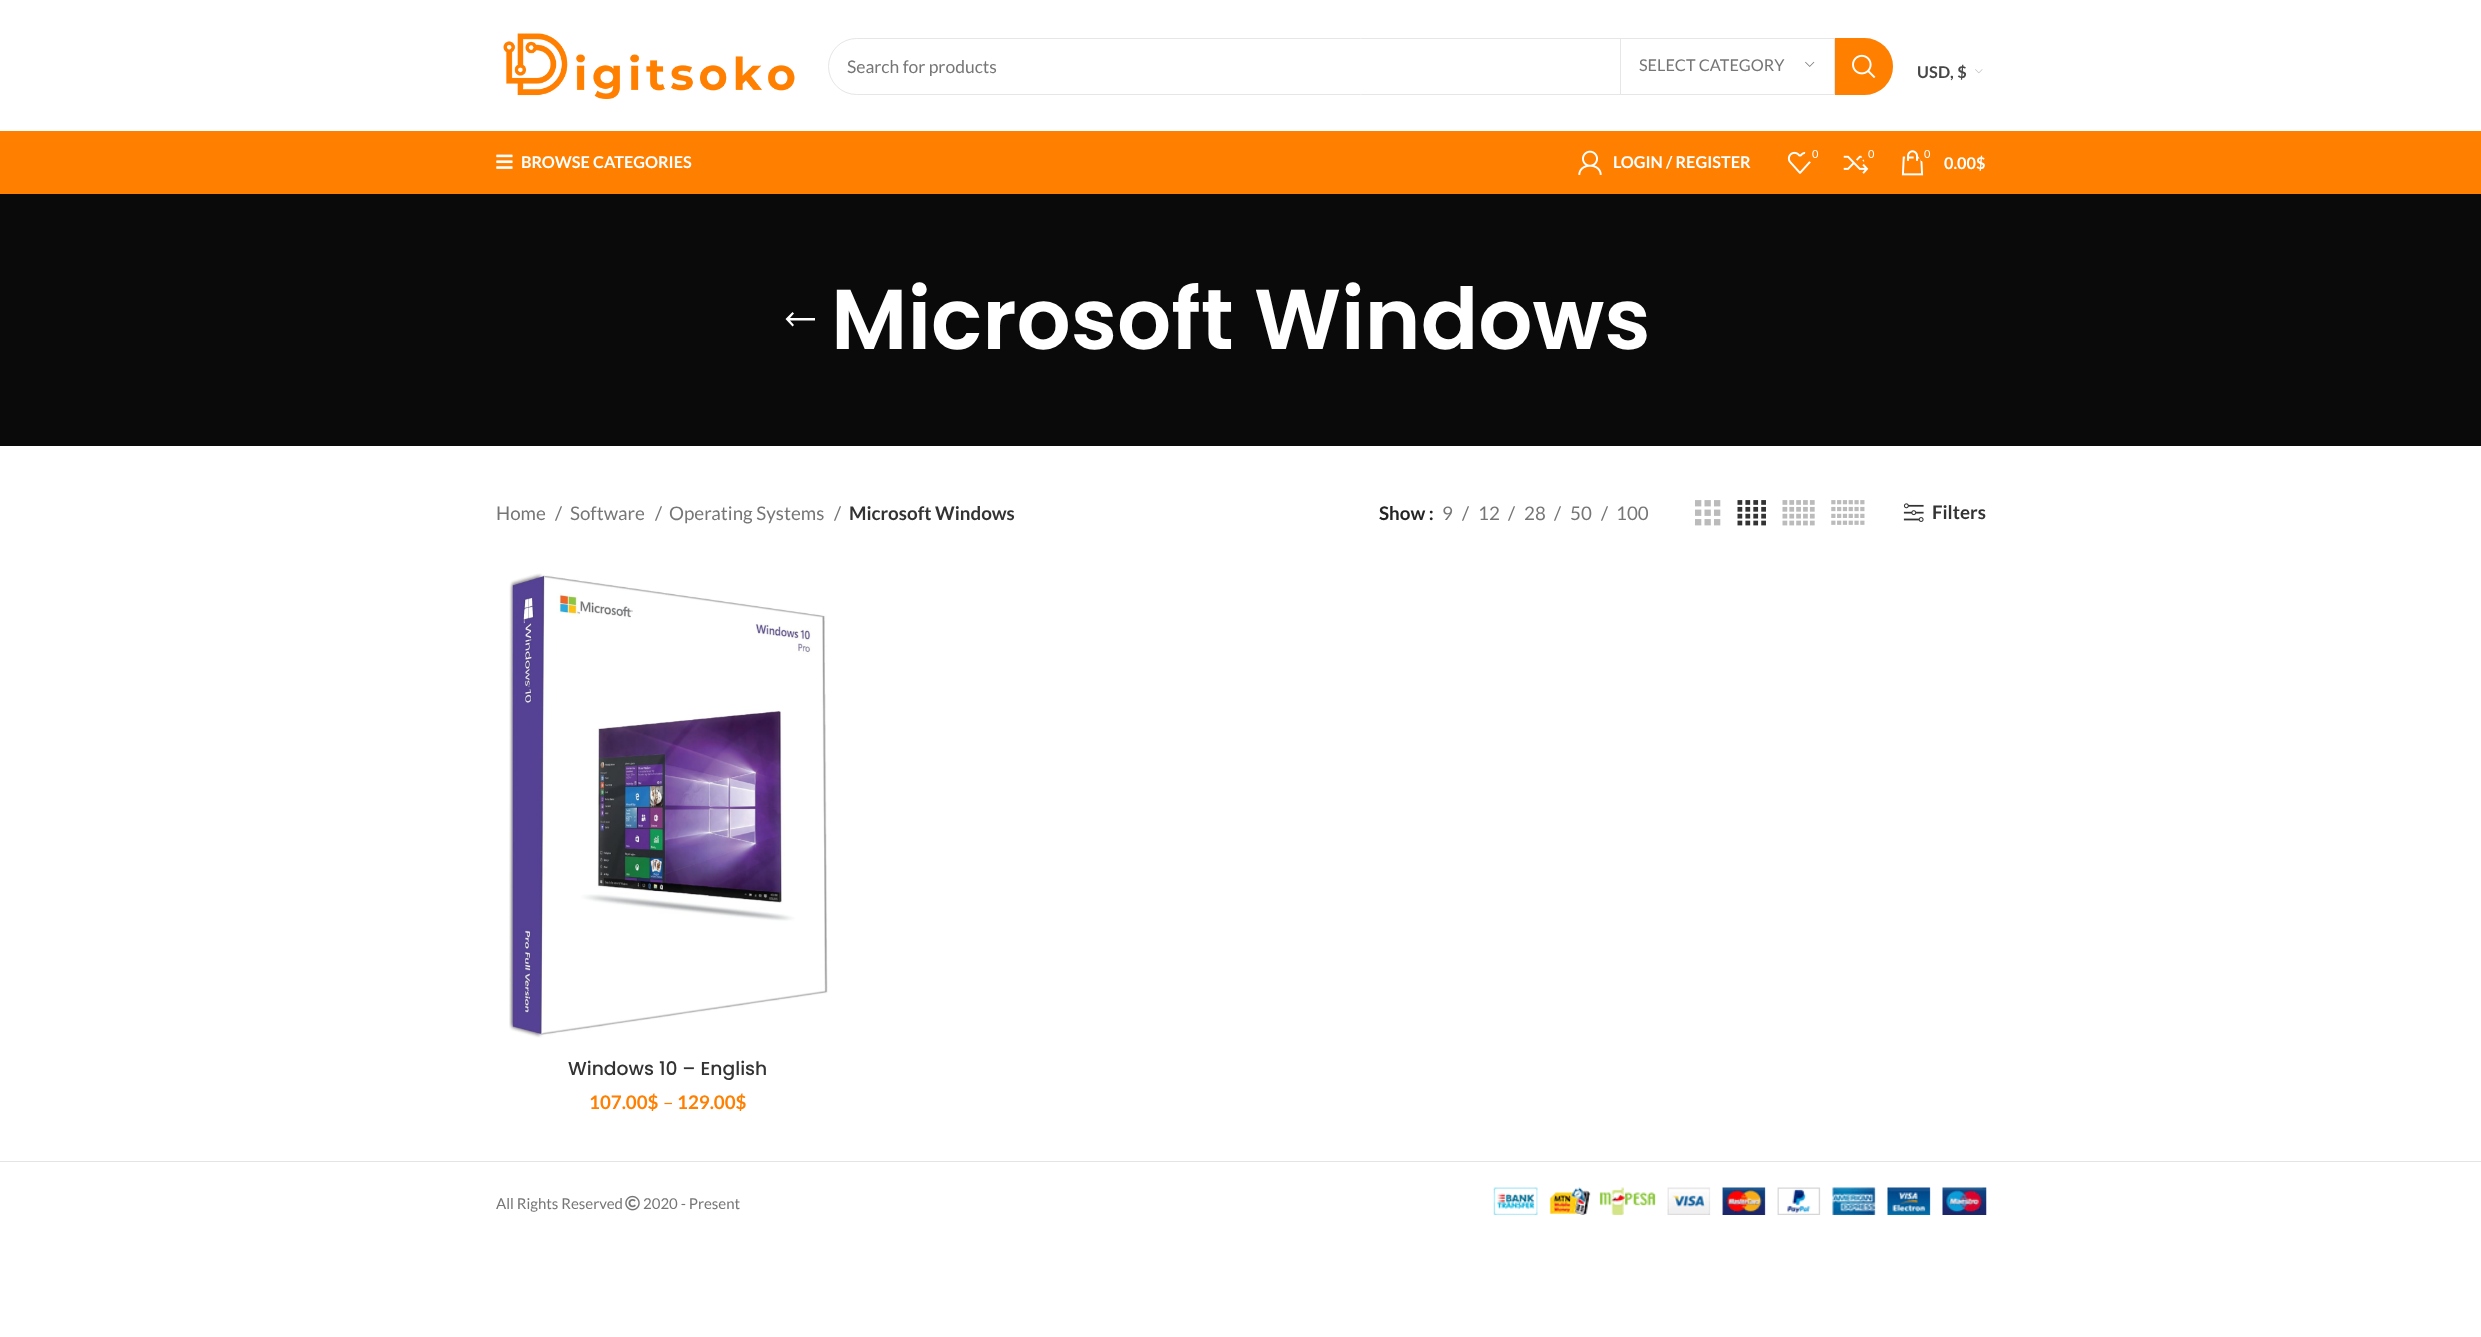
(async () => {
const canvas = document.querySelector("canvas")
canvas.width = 2481
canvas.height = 1337
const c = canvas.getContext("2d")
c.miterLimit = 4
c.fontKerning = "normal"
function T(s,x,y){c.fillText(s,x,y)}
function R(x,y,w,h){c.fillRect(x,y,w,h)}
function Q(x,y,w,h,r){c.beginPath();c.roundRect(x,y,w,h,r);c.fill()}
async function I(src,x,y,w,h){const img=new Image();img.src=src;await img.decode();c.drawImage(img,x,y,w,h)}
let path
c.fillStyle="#fff"
R(0,0,2481,1337)
await I("1.png",503,33,292,66)
c.beginPath()
c.roundRect(828.5,38.5,1064,56,28)
c.strokeStyle="#e6e6e6"
c.stroke()
c.font="17.5px Lato"
c.fillStyle="#767676"
T("Search for products",847,73)
c.fillStyle="#e6e6e6"
R(1834,39,1,55)
R(1620,39,1,55)
c.font="16.25px Lato"
c.fillStyle="#767676"
T("SELECT CATEGORY",1639,71)
await I("2.png",1805,61,10,6)
c.fillStyle="#ff7f00"
c.beginPath()
c.roundRect(1835,38,58,57,[0,28.5,28.5,0])
c.fill()
await I("3.png",1852,54,24,24)
c.save()
c.beginPath()
c.rect(1918,41,68,50)
c.clip()
c.letterSpacing="0.25px"
c.font="bold 16.25px Lato"
c.fillStyle="#474747"
T("USD, $",1917,78)
c.restore()
await I("4.png",1975,69,8,5)
R(0,131,2481,63)
await I("5.png",496,154,17,15)
c.font="bold 16.25px Lato"
c.fillStyle="#fff"
T("BROWSE CATEGORIES",521,168)
await I("6.png",1578,150,24,25)
T("LOGIN / REGISTER",1613,168)
await I("7.png",1787,151,24,23)
c.fillStyle="#ff7f00"
c.beginPath()
c.arc(1814.5,153.5,9.5,0,7)
c.fill()
c.font="11px Lato"
c.fillStyle="#fff"
T("0",1812,158)
await I("8.png",1843,155,26,19)
c.fillStyle="#ff7f00"
c.beginPath()
c.arc(1870.5,153.5,9.5,0,7)
c.fill()
c.fillStyle="#fff"
T("0",1868,158)
await I("9.png",1901,150,23,26)
c.fillStyle="#ff7f00"
Q(1918,144,18,19,9)
c.fillStyle="#fff"
T("0",1924,158)
c.font="bold 16.25px Lato"
T("0.00$",1944,169)
c.fillStyle="#0a0a0a"
R(0,194,2481,252)
c.fillStyle="#fff"
path = new Path2D("M794 325l-4-4.5h25v-2.5h-25l4-4.5l-1.5-1.5l-7 7l7 7.5z")
c.fill(path)
c.font="600 85px Poppins"
T("Microsoft Windows",831,349)
c.font="18.75px Lato"
c.fillStyle="#767676"
T("Home",496,520)
T("/",555,520)
T("Software",570,520)
T("/",655,520)
T("Operating Systems",669,520)
T("/",834,520)
c.font="bold 18.75px Lato"
c.fillStyle="#333"
T("Microsoft Windows",849,520)
c.fillStyle="#242424"
T("Show :",1379,520)
c.font="18.75px Lato"
c.fillStyle="#767676"
T("9",1442,520)
T("/",1462,520)
T("12",1478,520)
T("/",1508,520)
T("28",1524,520)
T("/",1554,520)
T("50",1570,520)
T("/",1601,520)
T("100",1616,520)
await I("10.png",1695,500,26,26)
await I("11.png",1737,500,29,26)
await I("12.png",1782,500,33,26)
await I("13.png",1831,500,34,25)
await I("14.png",1903,503,21,19)
c.font="bold 18.75px Lato"
c.fillStyle="#333"
T("Filters",1932,519)
await I("15.png",509,573,319,465)
c.font="500 18.75px Poppins"
T("Windows 10 – English",568,1075)
c.font="bold 18.75px Lato"
c.fillStyle="#ff7f00"
T("107.00$",589,1109)
c.font="18.75px Lato"
T("–",663,1109)
c.font="bold 18.75px Lato"
T("129.00$",677,1109)
c.fillStyle="#e4e4e4"
R(0,1161,2481,1)
c.font="15px Lato"
c.fillStyle="#767676"
T("All Rights Reserved",496,1209)
await I("16.png",625,1195,15,16)
T("2020 - Present",643,1209)
await I("17.png",1493,1187,494,28)
})()
